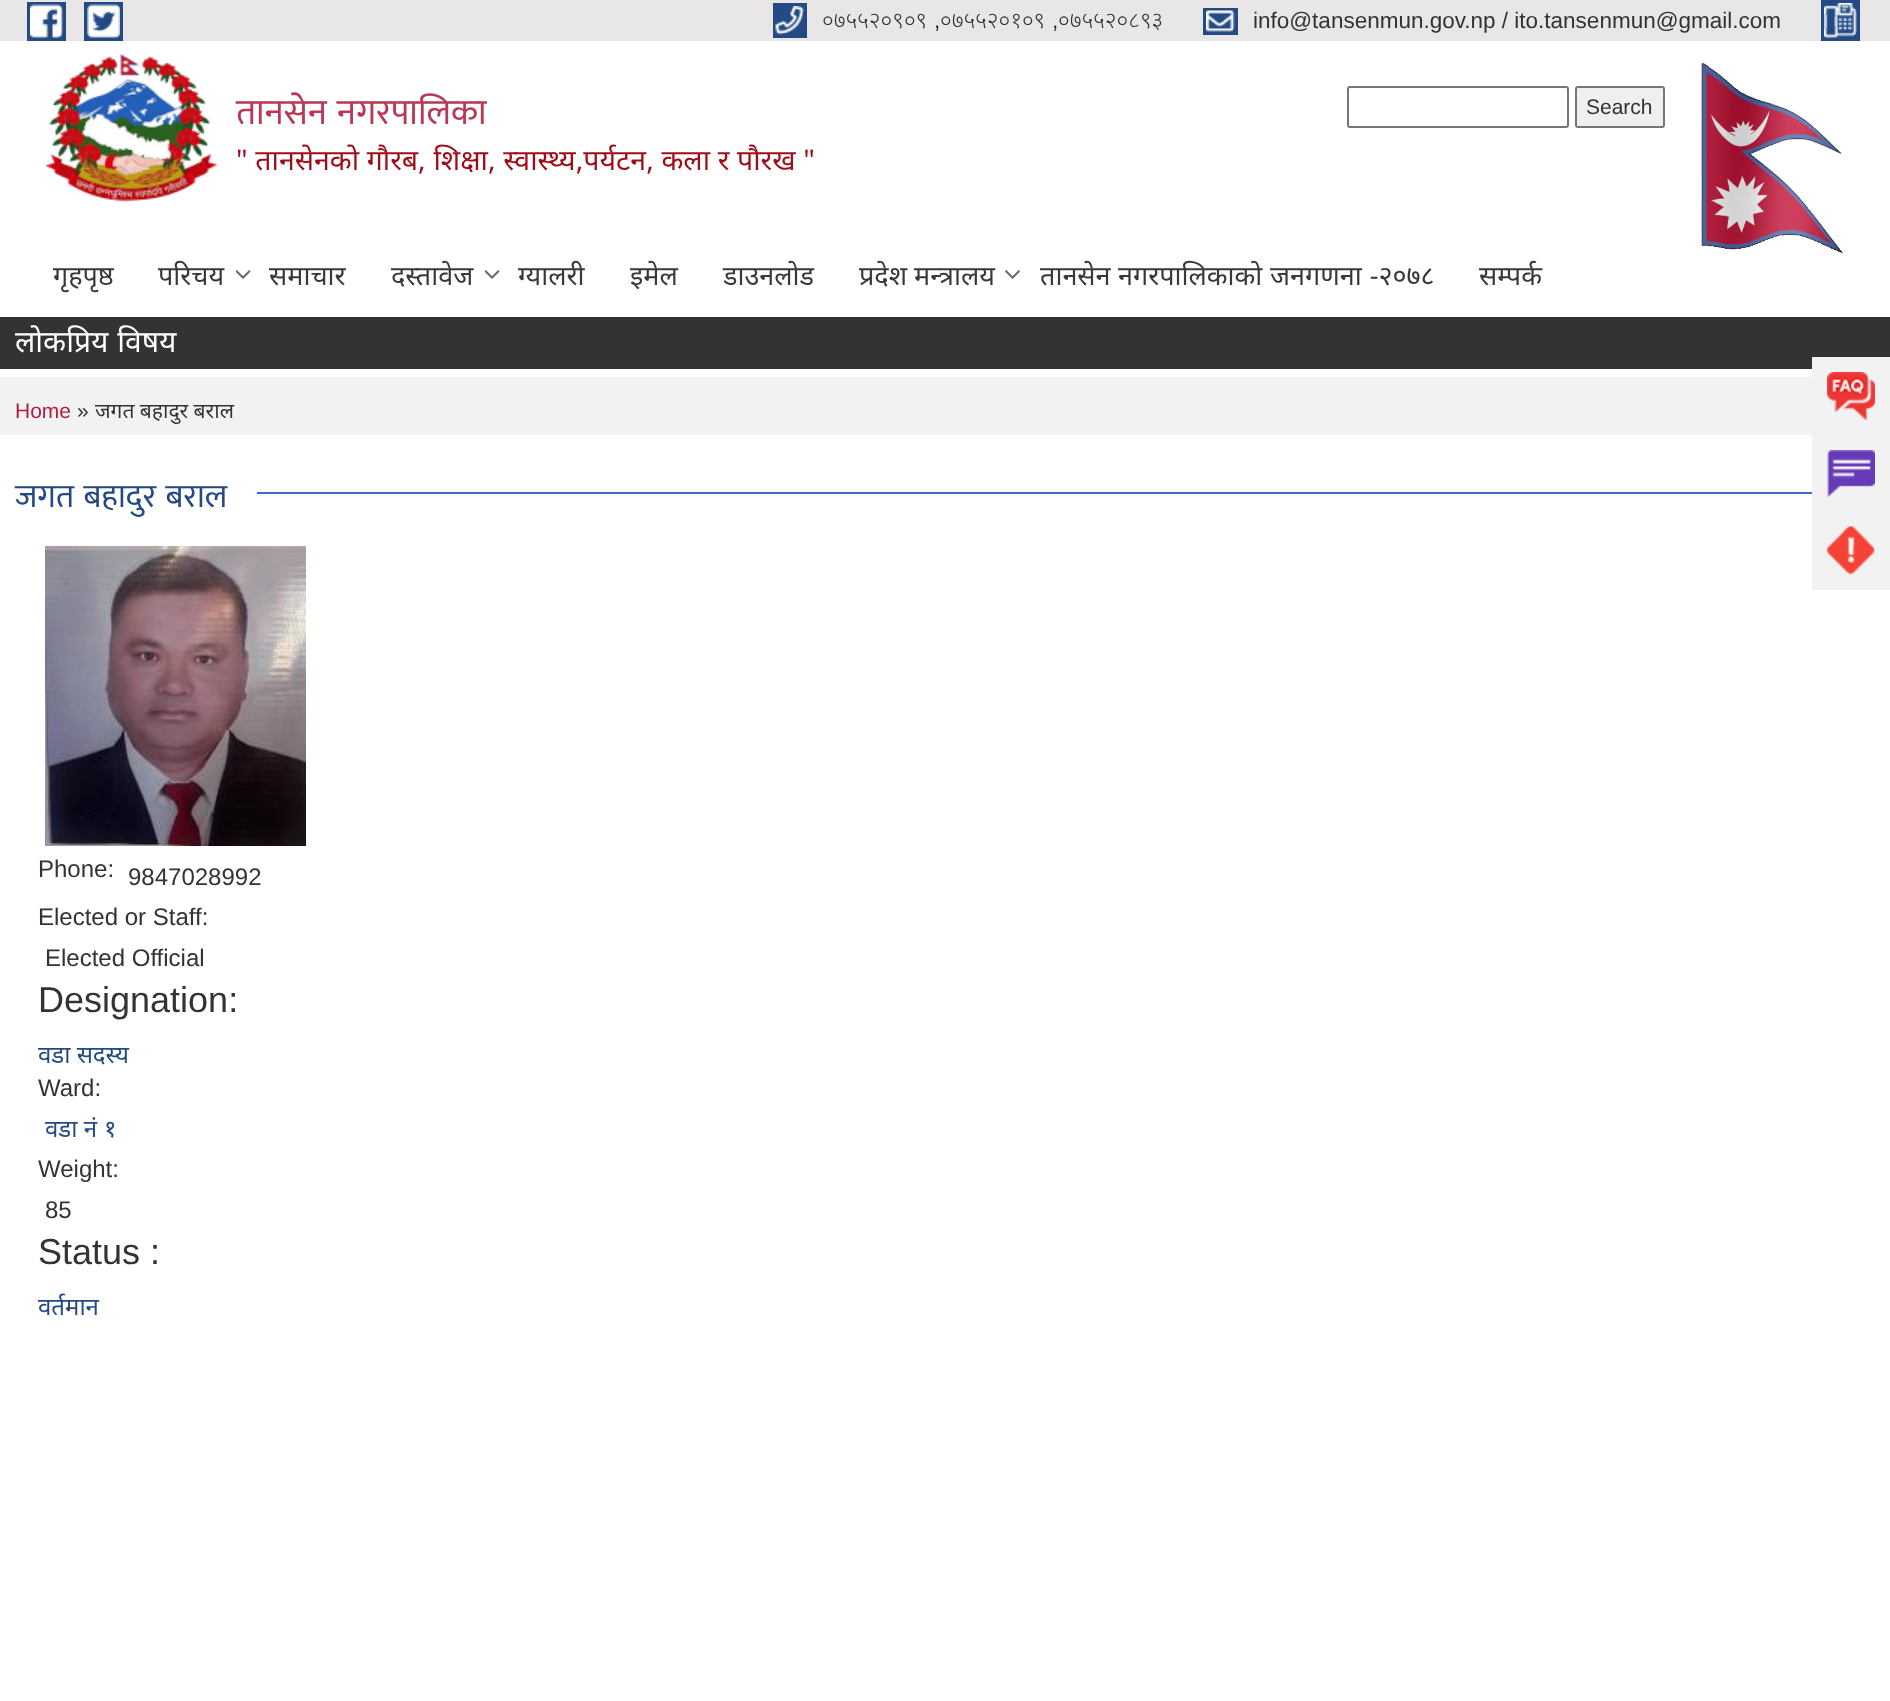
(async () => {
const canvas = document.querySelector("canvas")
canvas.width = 1890
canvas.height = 1701
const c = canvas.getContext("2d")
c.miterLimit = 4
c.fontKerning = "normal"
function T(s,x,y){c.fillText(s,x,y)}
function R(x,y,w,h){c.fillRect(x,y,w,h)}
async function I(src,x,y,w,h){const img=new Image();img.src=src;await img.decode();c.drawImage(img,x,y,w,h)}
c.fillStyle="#fff"
R(0,0,1890,1701)
c.fillStyle="#e8e6e6"
R(0,0,1890,41)
c.fillStyle="#234a83"
R(27,2,39,39)
R(84,2,39,39)
await I("1.png",30,4,33,34)
await I("2.png",87,4,33,34)
R(1821,0,39,41)
R(773,3,34,35)
await I("3.png",775,6,29,29)
c.font="300 22.5px Noto Sans"
c.fillStyle="#333"
T("०७५५२०९०९",822,28)
c.font="22.5px Liberation Sans"
T(",",934,28)
c.font="300 22.5px Noto Sans"
T("०७५५२०१०९",940,28)
c.font="22.5px Liberation Sans"
T(",",1052,28)
c.font="300 22.5px Noto Sans"
T("०७५५२०८९३",1058,28)
c.fillStyle="#234a83"
R(1203,8,35,27)
await I("4.png",1206,10,29,22)
c.font="22.5px Liberation Sans"
c.fillStyle="#333"
T("info@tansenmun.gov.np / ito.tansenmun@gmail.com",1253,28)
await I("5.png",1824,3,33,35)
await I("6.png",45,53,173,149)
c.wordSpacing="2px"
c.font="36px Mukta"
c.fillStyle="#b83955"
T("तानसेन नगरपालिका",236,124)
c.wordSpacing="0.25px"
c.font="28.5px Noto Sans"
c.fillStyle="#9e0c18"
T("\" तानसेनको गौरब, शिक्षा, स्वास्थ्य,पर्यटन, कला र पौरख \"",236,170)
c.beginPath()
c.roundRect(1348,87,220,40,2)
c.strokeStyle="#767676"
c.lineWidth=2
c.stroke()
c.fillStyle="#efefef"
c.beginPath()
c.roundRect(1576,87,88,40,2)
c.fill()
c.stroke()
c.wordSpacing="0px"
c.font="21px Liberation Sans"
c.fillStyle="#333"
T("Search",1586,114)
await I("7.png",1701,63,142,190)
c.font="27px Noto Sans"
c.fillStyle="#393939"
T("गृहपृष्ठ",53,285)
T("परिचय",158,285)
await I("8.png",236,270,15,9)
T("समाचार",269,285)
T("दस्तावेज",391,285)
await I("8.png",485,270,15,9)
T("ग्यालरी",518,285)
T("इमेल",630,285)
T("डाउनलोड",723,285)
T("प्रदेश मन्त्रालय",859,285)
await I("9.png",1005,270,15,9)
T("तानसेन",1040,285)
T("नगरपालिकाको",1118,285)
c.wordSpacing="1px"
T("जनगणना -२०७८",1270,285)
c.wordSpacing="0px"
T("सम्पर्क",1479,285)
c.fillStyle="#333"
R(0,317,1890,52)
c.wordSpacing="1px"
c.font="30px Noto Sans"
c.fillStyle="#fff"
T("लोकप्रिय विषय",15,352)
c.fillStyle="#f2f2f2"
R(0,377,1812,58)
c.wordSpacing="0px"
c.font="21px Liberation Sans"
c.fillStyle="#b21c42"
T("Home",15,418)
c.fillStyle="#333"
T("»",77,418)
c.font="21px Noto Sans"
T("जगत बहादुर बराल",95,418)
c.wordSpacing="2px"
c.font="33px Mukta"
c.fillStyle="#234a83"
T("जगत बहादुर बराल",15,507)
c.fillStyle="#376fc2"
R(257,492,1555,2)
await I("10.png",45,546,261,300)
c.wordSpacing="0px"
c.font="24px Liberation Sans"
c.fillStyle="#333"
T("Phone:",38,877)
T("9847028992",128,885)
T("Elected or Staff:",38,925)
T("Elected Official",45,966)
c.font="36px Liberation Sans"
T("Designation:",38,1012)
c.font="24px Noto Sans"
c.fillStyle="#234a83"
T("वडा सदस्य",38,1063)
c.font="24px Liberation Sans"
c.fillStyle="#333"
T("Ward:",38,1096)
c.font="24px Noto Sans"
c.fillStyle="#234a83"
T("वडा नं",45,1137)
T("१",104,1137)
c.font="24px Liberation Sans"
c.fillStyle="#333"
T("Weight:",38,1177)
T("85",45,1218)
c.font="36px Liberation Sans"
T("Status :",38,1264)
c.font="24px Noto Sans"
c.fillStyle="#234a83"
T("वर्तमान",38,1315)
c.fillStyle="#f2f2f2"
R(1812,357,78,233)
await I("11.png",1827,372,48,48)
await I("12.png",1827,450,48,47)
await I("13.png",1827,526,48,49)
})()
